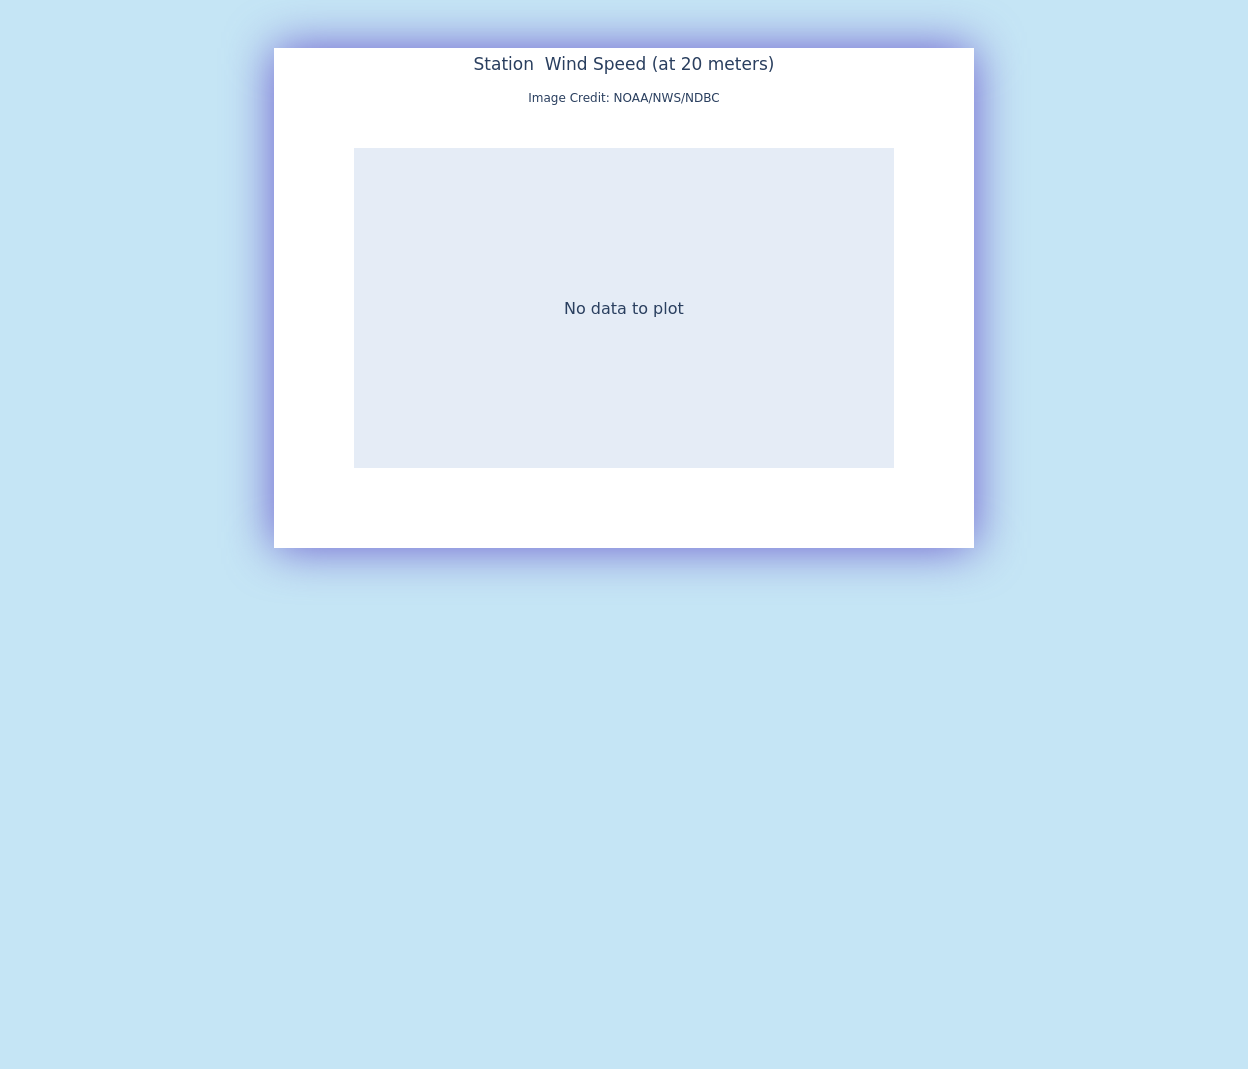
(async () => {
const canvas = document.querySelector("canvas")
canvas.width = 1248
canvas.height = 1069
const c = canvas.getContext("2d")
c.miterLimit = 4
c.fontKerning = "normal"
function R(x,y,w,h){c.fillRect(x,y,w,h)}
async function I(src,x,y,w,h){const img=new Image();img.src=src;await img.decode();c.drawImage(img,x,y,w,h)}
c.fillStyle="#c5e5f5"
R(0,0,1248,1069)
c.fillStyle="#6a5acd"
c.filter="blur(24px)"
c.beginPath()
c.rect(274,48,700,500)
c.fill()
c.filter="none"
await I("1.png",274,48,700,500)
})()
